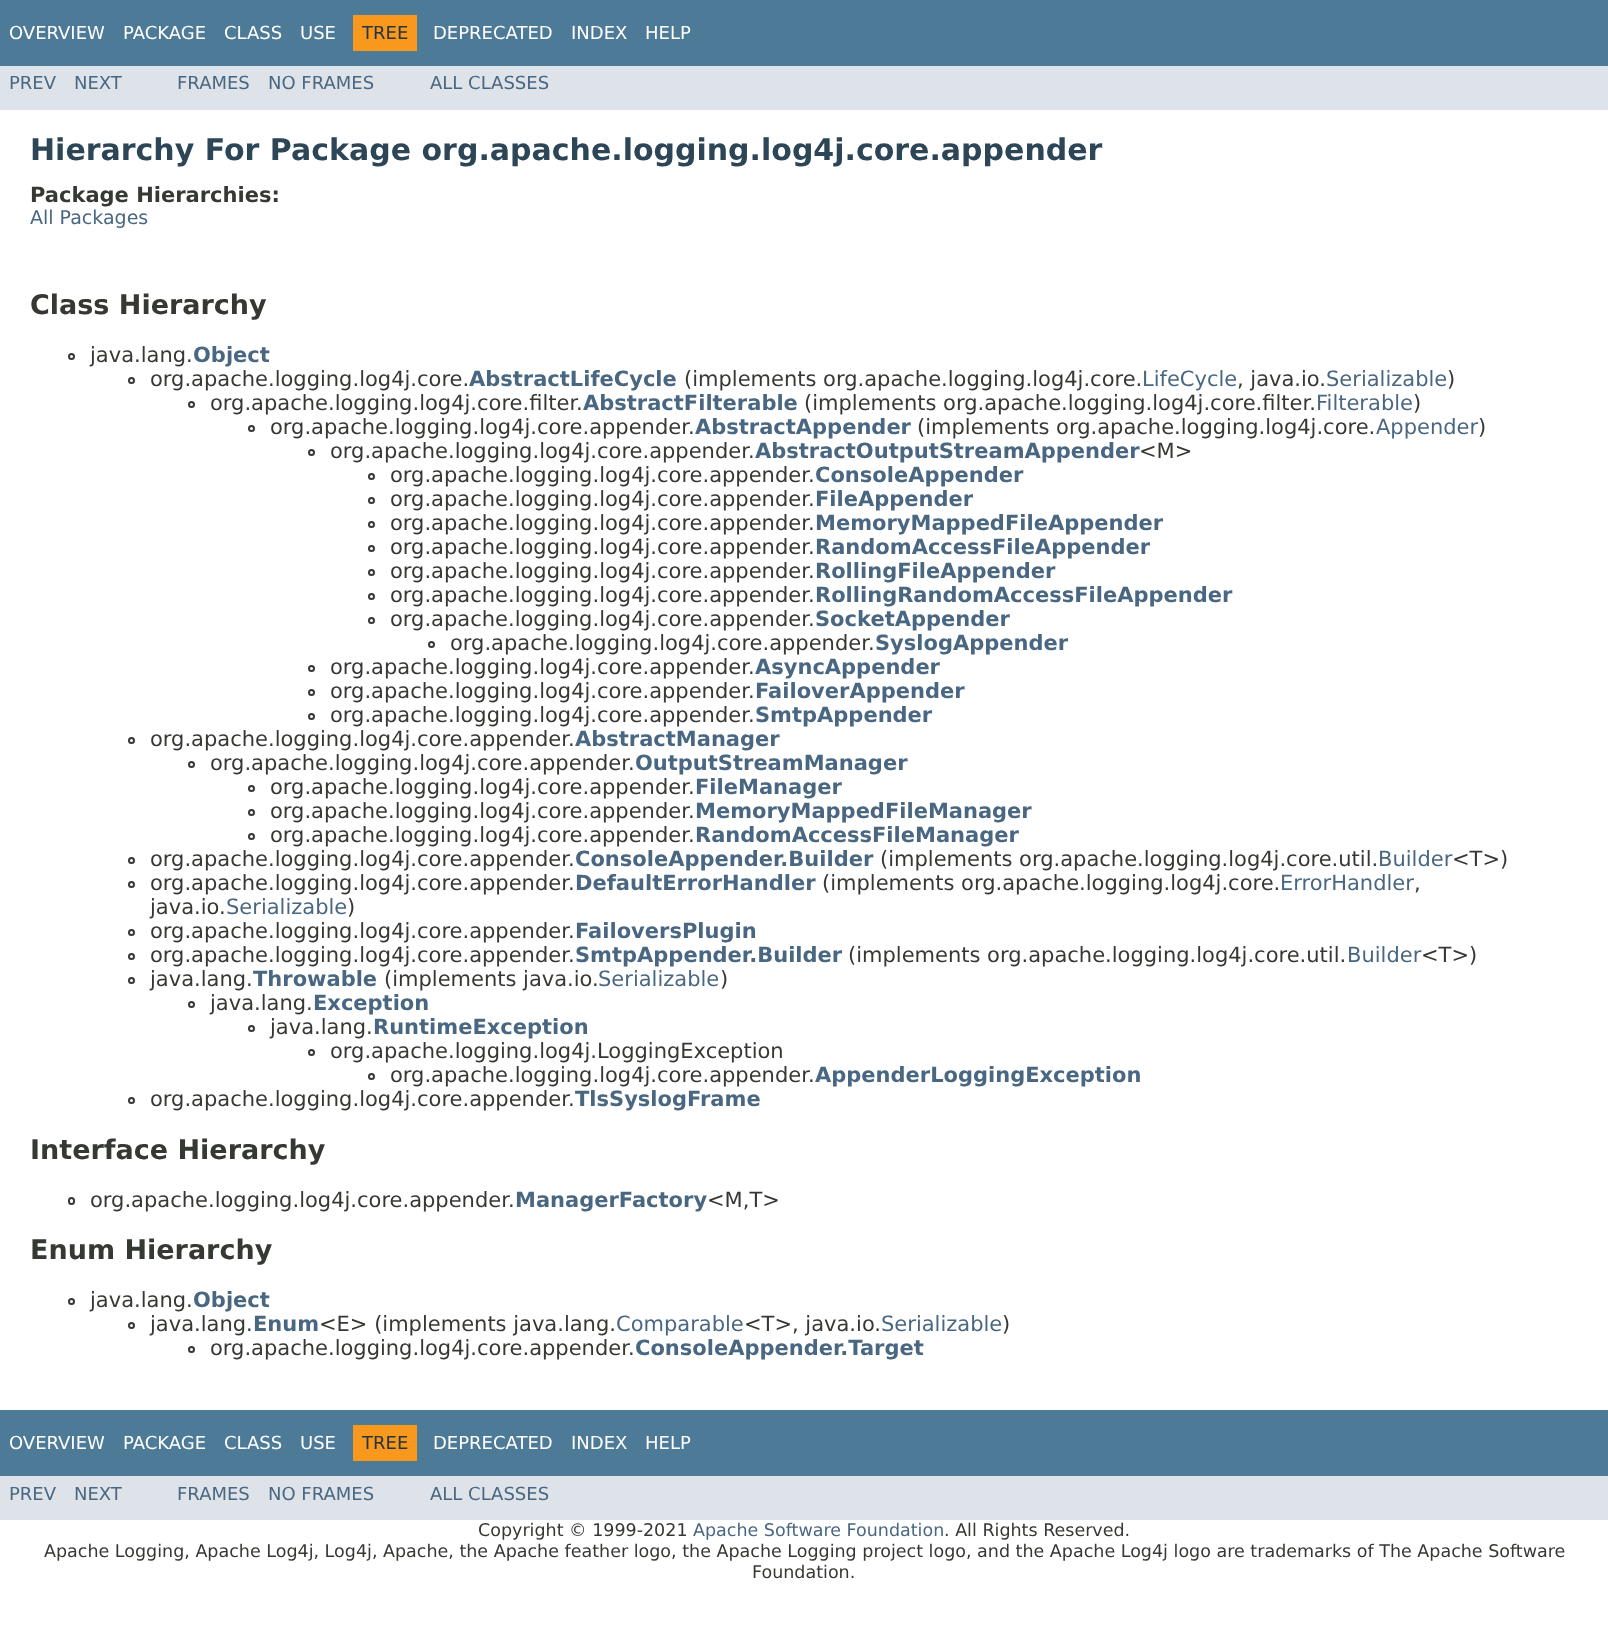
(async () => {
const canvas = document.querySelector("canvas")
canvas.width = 1608
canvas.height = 1636
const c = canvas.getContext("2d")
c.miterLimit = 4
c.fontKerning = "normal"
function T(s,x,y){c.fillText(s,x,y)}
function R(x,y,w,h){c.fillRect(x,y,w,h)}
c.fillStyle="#fff"
R(0,0,1608,1636)
c.fillStyle="#4d7a97"
R(0,0,1608,66)
c.font="18px DejaVu Sans"
c.fillStyle="#fff"
T("OVERVIEW",9,39)
T("PACKAGE",123,39)
T("CLASS",224,39)
T("USE",300,39)
c.fillStyle="#f8981d"
R(353,15,64,36)
c.fillStyle="#253441"
T("TREE",362,39)
c.fillStyle="#fff"
T("DEPRECATED",433,39)
T("INDEX",571,39)
T("HELP",645,39)
c.fillStyle="#dee3e9"
R(0,66,1608,44)
c.fillStyle="#4a6782"
T("PREV",9,89)
T("NEXT",74,89)
T("FRAMES",177,89)
T("NO FRAMES",268,89)
T("ALL CLASSES",430,89)
c.font="bold 30px DejaVu Sans"
c.fillStyle="#2c4557"
T("Hierarchy For Package org.apache.logging.log4j.core.appender",30,160)
c.font="bold 21px DejaVu Sans"
c.fillStyle="#353833"
T("Package Hierarchies:",30,202)
c.font="19px DejaVu Sans"
c.fillStyle="#4a6782"
T("All Packages",30,224)
c.font="bold 27px DejaVu Sans"
c.fillStyle="#353833"
T("Class Hierarchy",30,314)
c.beginPath()
c.arc(71.5,356.5,2.5,0,7)
c.strokeStyle="#353833"
c.lineWidth=2
c.stroke()
c.font="21px DejaVu Sans"
T("java.lang.",90,362)
c.font="bold 21px DejaVu Sans"
c.fillStyle="#4a6782"
T("Object",193,362)
c.beginPath()
c.arc(131.5,380.5,2.5,0,7)
c.stroke()
c.font="21px DejaVu Sans"
c.fillStyle="#353833"
T("org.apache.logging.log4j.core.",150,386)
c.font="bold 21px DejaVu Sans"
c.fillStyle="#4a6782"
T("AbstractLifeCycle",469,386)
c.font="21px DejaVu Sans"
c.fillStyle="#353833"
T("(implements org.apache.logging.log4j.core.",684,386)
c.fillStyle="#4a6782"
T("LifeCycle",1142,386)
c.fillStyle="#353833"
T(", java.io.",1237,386)
c.fillStyle="#4a6782"
T("Serializable",1326,386)
c.fillStyle="#353833"
T(")",1447,386)
c.beginPath()
c.arc(191.5,404.5,2.5,0,7)
c.stroke()
T("org.apache.logging.log4j.core.filter.",210,410)
c.font="bold 21px DejaVu Sans"
c.fillStyle="#4a6782"
T("AbstractFilterable",583,410)
c.font="21px DejaVu Sans"
c.fillStyle="#353833"
T("(implements org.apache.logging.log4j.core.filter.",804,410)
c.fillStyle="#4a6782"
T("Filterable",1316,410)
c.fillStyle="#353833"
T(")",1413,410)
c.beginPath()
c.arc(251.5,428.5,2.5,0,7)
c.stroke()
T("org.apache.logging.log4j.core.appender.",270,434)
c.font="bold 21px DejaVu Sans"
c.fillStyle="#4a6782"
T("AbstractAppender",695,434)
c.font="21px DejaVu Sans"
c.fillStyle="#353833"
T("(implements org.apache.logging.log4j.core.",917,434)
c.fillStyle="#4a6782"
T("Appender",1376,434)
c.fillStyle="#353833"
T(")",1478,434)
c.beginPath()
c.arc(311.5,452.5,2.5,0,7)
c.stroke()
T("org.apache.logging.log4j.core.appender.",330,458)
c.font="bold 21px DejaVu Sans"
c.fillStyle="#4a6782"
T("AbstractOutputStreamAppender",755,458)
c.font="21px DejaVu Sans"
c.fillStyle="#353833"
T("<M>",1139,458)
c.beginPath()
c.arc(371.5,476.5,2.5,0,7)
c.stroke()
T("org.apache.logging.log4j.core.appender.",390,482)
c.font="bold 21px DejaVu Sans"
c.fillStyle="#4a6782"
T("ConsoleAppender",815,482)
c.beginPath()
c.arc(371.5,500.5,2.5,0,7)
c.stroke()
c.font="21px DejaVu Sans"
c.fillStyle="#353833"
T("org.apache.logging.log4j.core.appender.",390,506)
c.font="bold 21px DejaVu Sans"
c.fillStyle="#4a6782"
T("FileAppender",815,506)
c.beginPath()
c.arc(371.5,524.5,2.5,0,7)
c.stroke()
c.font="21px DejaVu Sans"
c.fillStyle="#353833"
T("org.apache.logging.log4j.core.appender.",390,530)
c.font="bold 21px DejaVu Sans"
c.fillStyle="#4a6782"
T("MemoryMappedFileAppender",815,530)
c.beginPath()
c.arc(371.5,548.5,2.5,0,7)
c.stroke()
c.font="21px DejaVu Sans"
c.fillStyle="#353833"
T("org.apache.logging.log4j.core.appender.",390,554)
c.font="bold 21px DejaVu Sans"
c.fillStyle="#4a6782"
T("RandomAccessFileAppender",815,554)
c.beginPath()
c.arc(371.5,572.5,2.5,0,7)
c.stroke()
c.font="21px DejaVu Sans"
c.fillStyle="#353833"
T("org.apache.logging.log4j.core.appender.",390,578)
c.font="bold 21px DejaVu Sans"
c.fillStyle="#4a6782"
T("RollingFileAppender",815,578)
c.beginPath()
c.arc(371.5,596.5,2.5,0,7)
c.stroke()
c.font="21px DejaVu Sans"
c.fillStyle="#353833"
T("org.apache.logging.log4j.core.appender.",390,602)
c.font="bold 21px DejaVu Sans"
c.fillStyle="#4a6782"
T("RollingRandomAccessFileAppender",815,602)
c.beginPath()
c.arc(371.5,620.5,2.5,0,7)
c.stroke()
c.font="21px DejaVu Sans"
c.fillStyle="#353833"
T("org.apache.logging.log4j.core.appender.",390,626)
c.font="bold 21px DejaVu Sans"
c.fillStyle="#4a6782"
T("SocketAppender",815,626)
c.beginPath()
c.arc(431.5,644.5,2.5,0,7)
c.stroke()
c.font="21px DejaVu Sans"
c.fillStyle="#353833"
T("org.apache.logging.log4j.core.appender.",450,650)
c.font="bold 21px DejaVu Sans"
c.fillStyle="#4a6782"
T("SyslogAppender",875,650)
c.beginPath()
c.arc(311.5,668.5,2.5,0,7)
c.stroke()
c.font="21px DejaVu Sans"
c.fillStyle="#353833"
T("org.apache.logging.log4j.core.appender.",330,674)
c.font="bold 21px DejaVu Sans"
c.fillStyle="#4a6782"
T("AsyncAppender",755,674)
c.beginPath()
c.arc(311.5,692.5,2.5,0,7)
c.stroke()
c.font="21px DejaVu Sans"
c.fillStyle="#353833"
T("org.apache.logging.log4j.core.appender.",330,698)
c.font="bold 21px DejaVu Sans"
c.fillStyle="#4a6782"
T("FailoverAppender",755,698)
c.beginPath()
c.arc(311.5,716.5,2.5,0,7)
c.stroke()
c.font="21px DejaVu Sans"
c.fillStyle="#353833"
T("org.apache.logging.log4j.core.appender.",330,722)
c.font="bold 21px DejaVu Sans"
c.fillStyle="#4a6782"
T("SmtpAppender",755,722)
c.beginPath()
c.arc(131.5,740.5,2.5,0,7)
c.stroke()
c.font="21px DejaVu Sans"
c.fillStyle="#353833"
T("org.apache.logging.log4j.core.appender.",150,746)
c.font="bold 21px DejaVu Sans"
c.fillStyle="#4a6782"
T("AbstractManager",575,746)
c.beginPath()
c.arc(191.5,764.5,2.5,0,7)
c.stroke()
c.font="21px DejaVu Sans"
c.fillStyle="#353833"
T("org.apache.logging.log4j.core.appender.",210,770)
c.font="bold 21px DejaVu Sans"
c.fillStyle="#4a6782"
T("OutputStreamManager",635,770)
c.beginPath()
c.arc(251.5,788.5,2.5,0,7)
c.stroke()
c.font="21px DejaVu Sans"
c.fillStyle="#353833"
T("org.apache.logging.log4j.core.appender.",270,794)
c.font="bold 21px DejaVu Sans"
c.fillStyle="#4a6782"
T("FileManager",695,794)
c.beginPath()
c.arc(251.5,812.5,2.5,0,7)
c.stroke()
c.font="21px DejaVu Sans"
c.fillStyle="#353833"
T("org.apache.logging.log4j.core.appender.",270,818)
c.font="bold 21px DejaVu Sans"
c.fillStyle="#4a6782"
T("MemoryMappedFileManager",695,818)
c.beginPath()
c.arc(251.5,836.5,2.5,0,7)
c.stroke()
c.font="21px DejaVu Sans"
c.fillStyle="#353833"
T("org.apache.logging.log4j.core.appender.",270,842)
c.font="bold 21px DejaVu Sans"
c.fillStyle="#4a6782"
T("RandomAccessFileManager",695,842)
c.beginPath()
c.arc(131.5,860.5,2.5,0,7)
c.stroke()
c.font="21px DejaVu Sans"
c.fillStyle="#353833"
T("org.apache.logging.log4j.core.appender.",150,866)
c.font="bold 21px DejaVu Sans"
c.fillStyle="#4a6782"
T("ConsoleAppender.Builder",575,866)
c.font="21px DejaVu Sans"
c.fillStyle="#353833"
T("(implements org.apache.logging.log4j.core.util.",880,866)
c.fillStyle="#4a6782"
T("Builder",1378,866)
c.fillStyle="#353833"
T("<T>)",1452,866)
c.beginPath()
c.arc(131.5,884.5,2.5,0,7)
c.stroke()
T("org.apache.logging.log4j.core.appender.",150,890)
c.font="bold 21px DejaVu Sans"
c.fillStyle="#4a6782"
T("DefaultErrorHandler",575,890)
c.font="21px DejaVu Sans"
c.fillStyle="#353833"
T("(implements org.apache.logging.log4j.core.",822,890)
c.fillStyle="#4a6782"
T("ErrorHandler",1280,890)
c.fillStyle="#353833"
T(",",1414,890)
T("java.io.",150,914)
c.fillStyle="#4a6782"
T("Serializable",226,914)
c.fillStyle="#353833"
T(")",347,914)
c.beginPath()
c.arc(131.5,932.5,2.5,0,7)
c.stroke()
T("org.apache.logging.log4j.core.appender.",150,938)
c.font="bold 21px DejaVu Sans"
c.fillStyle="#4a6782"
T("FailoversPlugin",575,938)
c.beginPath()
c.arc(131.5,956.5,2.5,0,7)
c.stroke()
c.font="21px DejaVu Sans"
c.fillStyle="#353833"
T("org.apache.logging.log4j.core.appender.",150,962)
c.font="bold 21px DejaVu Sans"
c.fillStyle="#4a6782"
T("SmtpAppender.Builder",575,962)
c.font="21px DejaVu Sans"
c.fillStyle="#353833"
T("(implements org.apache.logging.log4j.core.util.",848,962)
c.fillStyle="#4a6782"
T("Builder",1347,962)
c.fillStyle="#353833"
T("<T>)",1421,962)
c.beginPath()
c.arc(131.5,980.5,2.5,0,7)
c.stroke()
T("java.lang.",150,986)
c.font="bold 21px DejaVu Sans"
c.fillStyle="#4a6782"
T("Throwable",253,986)
c.font="21px DejaVu Sans"
c.fillStyle="#353833"
T("(implements java.io.",384,986)
c.fillStyle="#4a6782"
T("Serializable",598,986)
c.fillStyle="#353833"
T(")",720,986)
c.beginPath()
c.arc(191.5,1004.5,2.5,0,7)
c.stroke()
T("java.lang.",210,1010)
c.font="bold 21px DejaVu Sans"
c.fillStyle="#4a6782"
T("Exception",313,1010)
c.beginPath()
c.arc(251.5,1028.5,2.5,0,7)
c.stroke()
c.font="21px DejaVu Sans"
c.fillStyle="#353833"
T("java.lang.",270,1034)
c.font="bold 21px DejaVu Sans"
c.fillStyle="#4a6782"
T("RuntimeException",373,1034)
c.beginPath()
c.arc(311.5,1052.5,2.5,0,7)
c.stroke()
c.font="21px DejaVu Sans"
c.fillStyle="#353833"
T("org.apache.logging.log4j.LoggingException",330,1058)
c.beginPath()
c.arc(371.5,1076.5,2.5,0,7)
c.stroke()
T("org.apache.logging.log4j.core.appender.",390,1082)
c.font="bold 21px DejaVu Sans"
c.fillStyle="#4a6782"
T("AppenderLoggingException",815,1082)
c.beginPath()
c.arc(131.5,1100.5,2.5,0,7)
c.stroke()
c.font="21px DejaVu Sans"
c.fillStyle="#353833"
T("org.apache.logging.log4j.core.appender.",150,1106)
c.font="bold 21px DejaVu Sans"
c.fillStyle="#4a6782"
T("TlsSyslogFrame",575,1106)
c.font="bold 27px DejaVu Sans"
c.fillStyle="#353833"
T("Interface Hierarchy",30,1159)
c.beginPath()
c.roundRect(69,1198,5,6,2.5)
c.stroke()
c.font="21px DejaVu Sans"
T("org.apache.logging.log4j.core.appender.",90,1207)
c.font="bold 21px DejaVu Sans"
c.fillStyle="#4a6782"
T("ManagerFactory",515,1207)
c.font="21px DejaVu Sans"
c.fillStyle="#353833"
T("<M,T>",707,1207)
c.font="bold 27px DejaVu Sans"
T("Enum Hierarchy",30,1259)
c.beginPath()
c.arc(71.5,1301.5,2.5,0,7)
c.stroke()
c.font="21px DejaVu Sans"
T("java.lang.",90,1307)
c.font="bold 21px DejaVu Sans"
c.fillStyle="#4a6782"
T("Object",193,1307)
c.beginPath()
c.arc(131.5,1325.5,2.5,0,7)
c.stroke()
c.font="21px DejaVu Sans"
c.fillStyle="#353833"
T("java.lang.",150,1331)
c.font="bold 21px DejaVu Sans"
c.fillStyle="#4a6782"
T("Enum",253,1331)
c.font="21px DejaVu Sans"
c.fillStyle="#353833"
T("<E> (implements java.lang.",319,1331)
c.fillStyle="#4a6782"
T("Comparable",616,1331)
c.fillStyle="#353833"
T("<T>, java.io.",744,1331)
c.fillStyle="#4a6782"
T("Serializable",881,1331)
c.fillStyle="#353833"
T(")",1002,1331)
c.beginPath()
c.arc(191.5,1349.5,2.5,0,7)
c.stroke()
T("org.apache.logging.log4j.core.appender.",210,1355)
c.font="bold 21px DejaVu Sans"
c.fillStyle="#4a6782"
T("ConsoleAppender.Target",635,1355)
c.fillStyle="#4d7a97"
R(0,1410,1608,66)
c.font="18px DejaVu Sans"
c.fillStyle="#fff"
T("OVERVIEW",9,1449)
T("PACKAGE",123,1449)
T("CLASS",224,1449)
T("USE",300,1449)
c.fillStyle="#f8981d"
R(353,1425,64,36)
c.fillStyle="#253441"
T("TREE",362,1449)
c.fillStyle="#fff"
T("DEPRECATED",433,1449)
T("INDEX",571,1449)
T("HELP",645,1449)
c.fillStyle="#dee3e9"
R(0,1476,1608,44)
c.fillStyle="#4a6782"
T("PREV",9,1500)
T("NEXT",74,1500)
T("FRAMES",177,1500)
T("NO FRAMES",268,1500)
T("ALL CLASSES",430,1500)
c.font="17.5px DejaVu Sans"
c.fillStyle="#353833"
T("Copyright © 1999-2021",478,1536)
c.fillStyle="#4a6782"
T("Apache Software Foundation",693,1536)
c.fillStyle="#353833"
T(". All Rights Reserved.",944,1536)
T("Apache Logging, Apache Log4j, Log4j, Apache, the Apache feather logo, the Apache Logging project logo, and the Apache Log4j logo are trademarks of The Apache Software",44,1557)
T("Foundation.",752,1578)
})()
